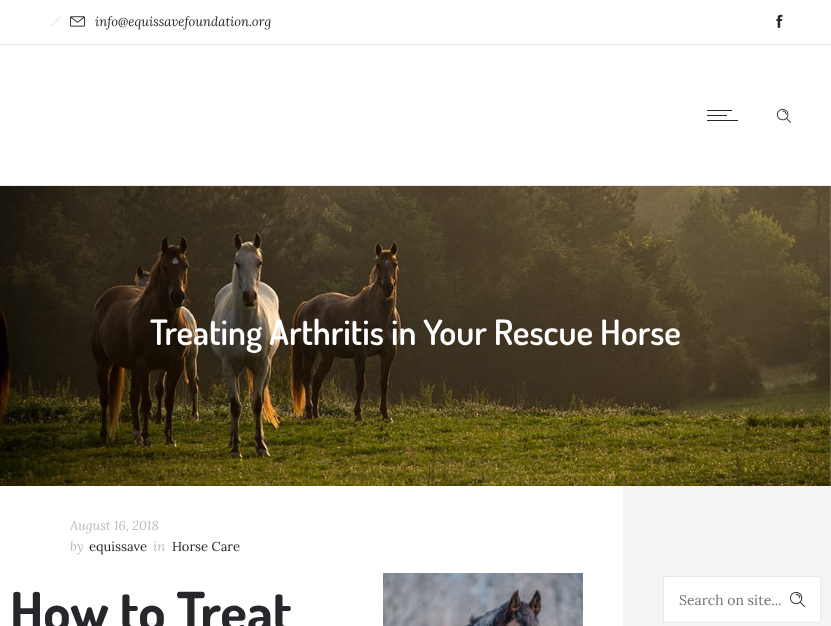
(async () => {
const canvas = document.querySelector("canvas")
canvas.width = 831
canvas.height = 626
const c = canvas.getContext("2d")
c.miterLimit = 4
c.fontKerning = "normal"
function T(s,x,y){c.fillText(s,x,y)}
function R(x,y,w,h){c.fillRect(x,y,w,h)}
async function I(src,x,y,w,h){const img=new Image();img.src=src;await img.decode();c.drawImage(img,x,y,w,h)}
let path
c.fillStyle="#fff"
R(0,0,831,626)
c.fillStyle="#eae9ea"
R(0,185,831,1)
R(0,44,831,1)
path = new Path2D("M60 16l1 1l-10 10l-1-1z")
c.fill(path)
await I("1.png",70,16,15,11)
c.font="italic 13px Lora"
c.fillStyle="#28262b"
T("info@equissavefoundation.org",95,26)
await I("2.png",776,14,7,14)
R(707,110,25,1)
R(707,115,20,1)
R(707,120,31,1)
await I("3.png",777,108,14,15)
await I("4.png",0,186,831,300)
c.fillStyle="#1b1b1b1a"
R(0,485,831,1)
c.font="600 35px Dosis"
c.fillStyle="#fff"
T("Treating Arthritis in Your Rescue Horse",150,345)
c.font="italic 13px Lora"
c.fillStyle="#bcbcbc"
T("August 16, 2018",70,530)
T("by",70,551)
c.font="13px Lora"
c.fillStyle="#28262b"
T("equissave",89,551)
c.font="italic 13px Lora"
c.fillStyle="#bcbcbc"
T("in",153,551)
c.font="13px Lora"
c.fillStyle="#28262b"
T("Horse Care",172,551)
c.font="bold 55px Dosis"
T("How to Treat",10,632)
await I("5.png",383,573,200,53)
c.fillStyle="#f4f4f4"
R(623,486,208,140)
c.fillStyle="#fff"
c.beginPath()
c.roundRect(663.5,576.5,157,46,2.5)
c.fill()
c.strokeStyle="#e8e8e8"
c.stroke()
c.font="14px Lora"
c.fillStyle="#727272"
T("Search on site...",679,605)
await I("6.png",790,591,15,16)
})()
